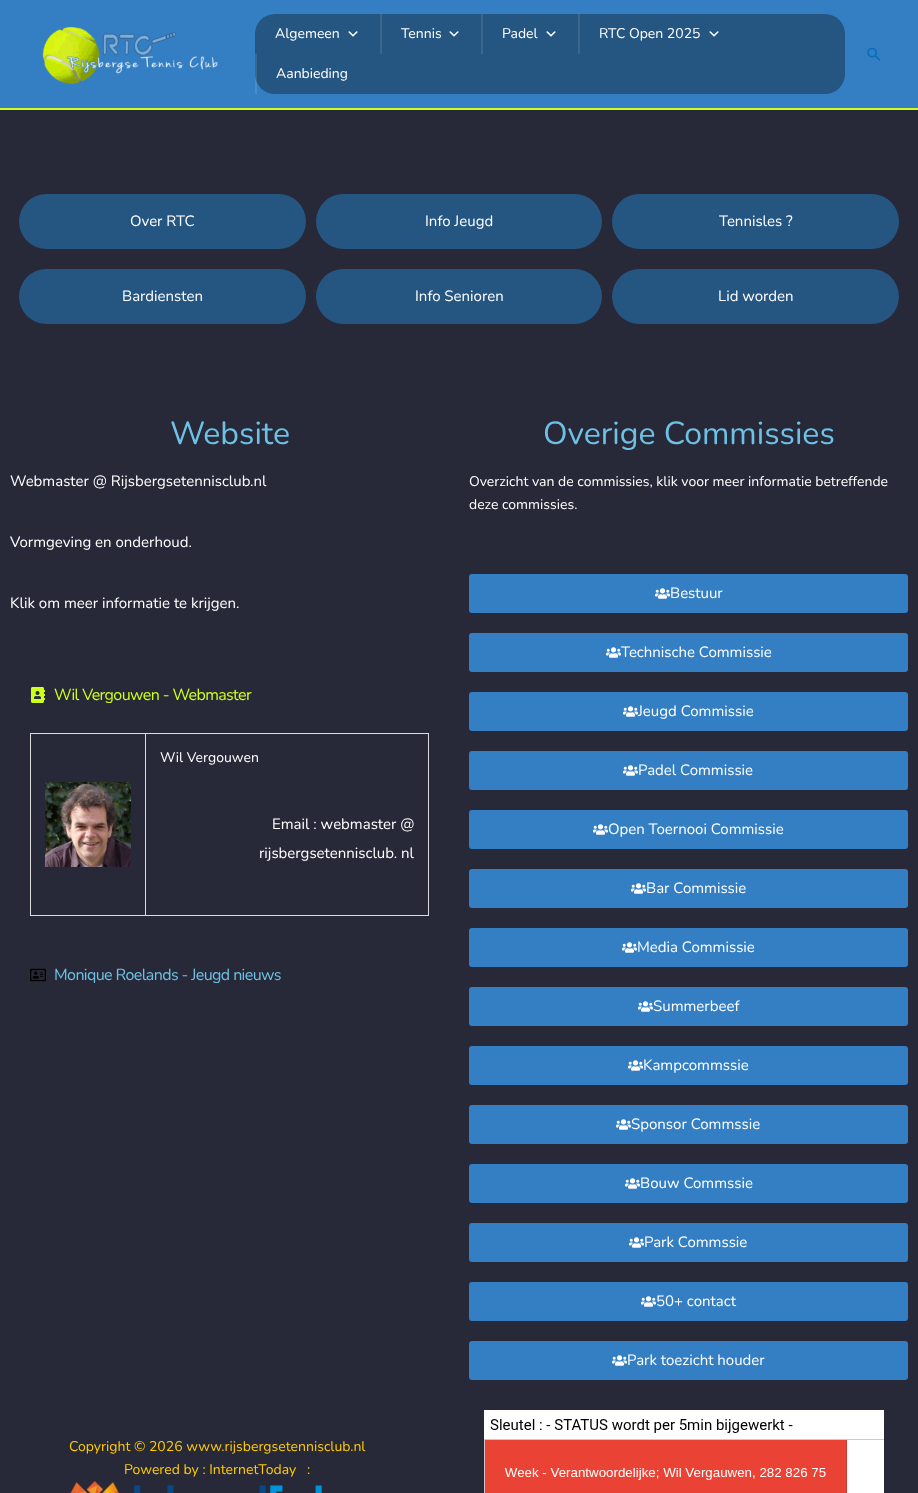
(async () => {
const canvas = document.querySelector("canvas")
canvas.width = 918
canvas.height = 1493
const c = canvas.getContext("2d")
c.miterLimit = 4
c.fontKerning = "normal"
function T(s,x,y){c.fillText(s,x,y)}
function R(x,y,w,h){c.fillRect(x,y,w,h)}
function Q(x,y,w,h,r){c.beginPath();c.roundRect(x,y,w,h,r);c.fill()}
async function I(src,x,y,w,h){const img=new Image();img.src=src;await img.decode();c.drawImage(img,x,y,w,h)}
c.fillStyle="#272838"
R(0,0,918,1493)
c.fillStyle="#347fc4"
R(0,0,918,108)
c.fillStyle="#ceff1a"
R(0,108,918,2)
await I("1.png",42,26,176,58)
c.fillStyle="#255682"
Q(255,14,590,80,20)
c.font="14px Nunito"
c.fillStyle="#fff"
T("Algemeen",275,38)
await I("2.png",348,31,10,6)
c.fillStyle="#3b678f"
R(380,14,2,40)
c.fillStyle="#fff"
T("Tennis",401,38)
await I("2.png",449,31,10,6)
c.fillStyle="#3b678f"
R(481,14,2,40)
c.fillStyle="#fff"
T("Padel",502,38)
await I("2.png",546,31,10,6)
c.fillStyle="#3b678f"
R(578,14,2,40)
c.fillStyle="#fff"
T("RTC Open 2025",599,38)
await I("2.png",709,31,10,6)
c.fillStyle="#ffffff1a"
R(256,54,1,40)
R(255,54,1,40)
c.fillStyle="#fff"
T("Aanbieding",276,78)
await I("3.png",867,47,14,14)
c.fillStyle="#255682"
Q(19,194,287,55,27.5)
c.font="15px Nunito"
c.fillStyle="#fff"
T("Over RTC",130,226)
c.fillStyle="#255682"
Q(19,269,287,55,27.5)
c.fillStyle="#fff"
T("Bardiensten",122,301)
c.fillStyle="#255682"
Q(316,194,286,55,27.5)
c.fillStyle="#fff"
T("Info Jeugd",425,226)
c.fillStyle="#255682"
Q(316,269,286,55,27.5)
c.fillStyle="#fff"
T("Info Senioren",415,301)
c.fillStyle="#255682"
Q(612,194,287,55,27.5)
c.fillStyle="#fff"
T("Tennisles ?",719,226)
c.fillStyle="#255682"
Q(612,269,287,55,27.5)
c.fillStyle="#fff"
T("Lid worden",718,301)
c.font="32px Nunito"
c.fillStyle="#6ec1e4"
T("Website",170,444)
c.font="15px Nunito"
c.fillStyle="#fff"
T("Webmaster @ Rijsbergsetennisclub.nl",10,486)
T("Vormgeving en onderhoud.",10,547)
T("Klik om meer informatie te krijgen.",10,608)
await I("4.png",31,687,14,16)
c.letterSpacing="-0.6px"
c.font="16px Nunito"
c.fillStyle="#ceff1a"
T("Wil Vergouwen - Webmaster",54,700)
c.fillStyle="#ddd"
R(30,733,399,1)
R(30,733,1,183)
R(145,734,1,182)
R(31,915,115,1)
await I("5.png",45,782,86,85)
R(428,734,1,182)
R(146,915,283,1)
c.letterSpacing="0px"
c.font="14px Nunito"
c.fillStyle="#fff"
T("Wil Vergouwen",160,762)
c.font="15px Nunito"
T("Email : webmaster @",272,829)
T("rijsbergsetennisclub. nl",259,858)
await I("6.png",30,968,16,14)
c.letterSpacing="-0.6px"
c.font="16px Nunito"
c.fillStyle="#6ec1e4"
T("Monique Roelands - Jeugd nieuws",54,980)
c.letterSpacing="0px"
c.font="32px Nunito"
T("Overige Commissies",543,444)
c.font="14px Nunito"
c.fillStyle="#fff"
T("Overzicht van de commissies, klik voor meer informatie betreffende",469,486)
T("deze commissies.",469,509)
c.fillStyle="#347fc4"
Q(469,574,439,39,3)
await I("7.png",655,588,15,11)
c.font="15px Nunito"
c.fillStyle="#fff"
T("Bestuur",670,598)
c.fillStyle="#347fc4"
Q(469,633,439,39,3)
c.fillStyle="#fff"
T("Technische Commissie",621,657)
await I("8.png",606,647,15,11)
c.fillStyle="#347fc4"
Q(469,692,439,39,3)
await I("7.png",623,706,15,11)
c.fillStyle="#fff"
T("Jeugd Commissie",638,716)
c.fillStyle="#347fc4"
Q(469,751,439,39,3)
await I("7.png",623,765,15,11)
c.fillStyle="#fff"
T("Padel Commissie",638,775)
c.fillStyle="#347fc4"
Q(469,810,439,39,3)
await I("7.png",593,824,15,11)
c.fillStyle="#fff"
T("Open Toernooi Commissie",608,834)
c.fillStyle="#347fc4"
Q(469,869,439,39,3)
await I("7.png",631,883,15,11)
c.fillStyle="#fff"
T("Bar Commissie",646,893)
c.fillStyle="#347fc4"
Q(469,928,439,39,3)
await I("7.png",622,942,15,11)
c.fillStyle="#fff"
T("Media Commissie",637,952)
c.fillStyle="#347fc4"
Q(469,987,439,39,3)
await I("7.png",638,1001,15,11)
c.fillStyle="#fff"
T("Summerbeef",653,1011)
c.fillStyle="#347fc4"
Q(469,1046,439,39,3)
await I("7.png",628,1060,15,11)
c.fillStyle="#fff"
T("Kampcommssie",643,1070)
c.fillStyle="#347fc4"
Q(469,1105,439,39,3)
await I("7.png",616,1119,15,11)
c.fillStyle="#fff"
T("Sponsor Commssie",631,1129)
c.fillStyle="#347fc4"
Q(469,1164,439,39,3)
await I("7.png",625,1178,15,11)
c.fillStyle="#fff"
T("Bouw Commssie",640,1188)
c.fillStyle="#347fc4"
Q(469,1223,439,39,3)
await I("7.png",629,1237,15,11)
c.fillStyle="#fff"
T("Park Commssie",644,1247)
c.fillStyle="#347fc4"
Q(469,1282,439,39,3)
await I("7.png",641,1296,15,11)
c.fillStyle="#fff"
T("50+ contact",656,1306)
c.fillStyle="#347fc4"
Q(469,1341,439,39,3)
await I("7.png",612,1355,15,11)
c.fillStyle="#fff"
T("Park toezicht houder",627,1365)
c.font="14px Nunito"
c.fillStyle="#fc0"
T("Copyright © 2026 www.rijsbergsetennisclub.nl",69,1451)
T("Powered by : InternetToday   :",124,1474)
await I("9.png",70,1481,253,12)
await I("10.png",484,1410,400,83)
})()
